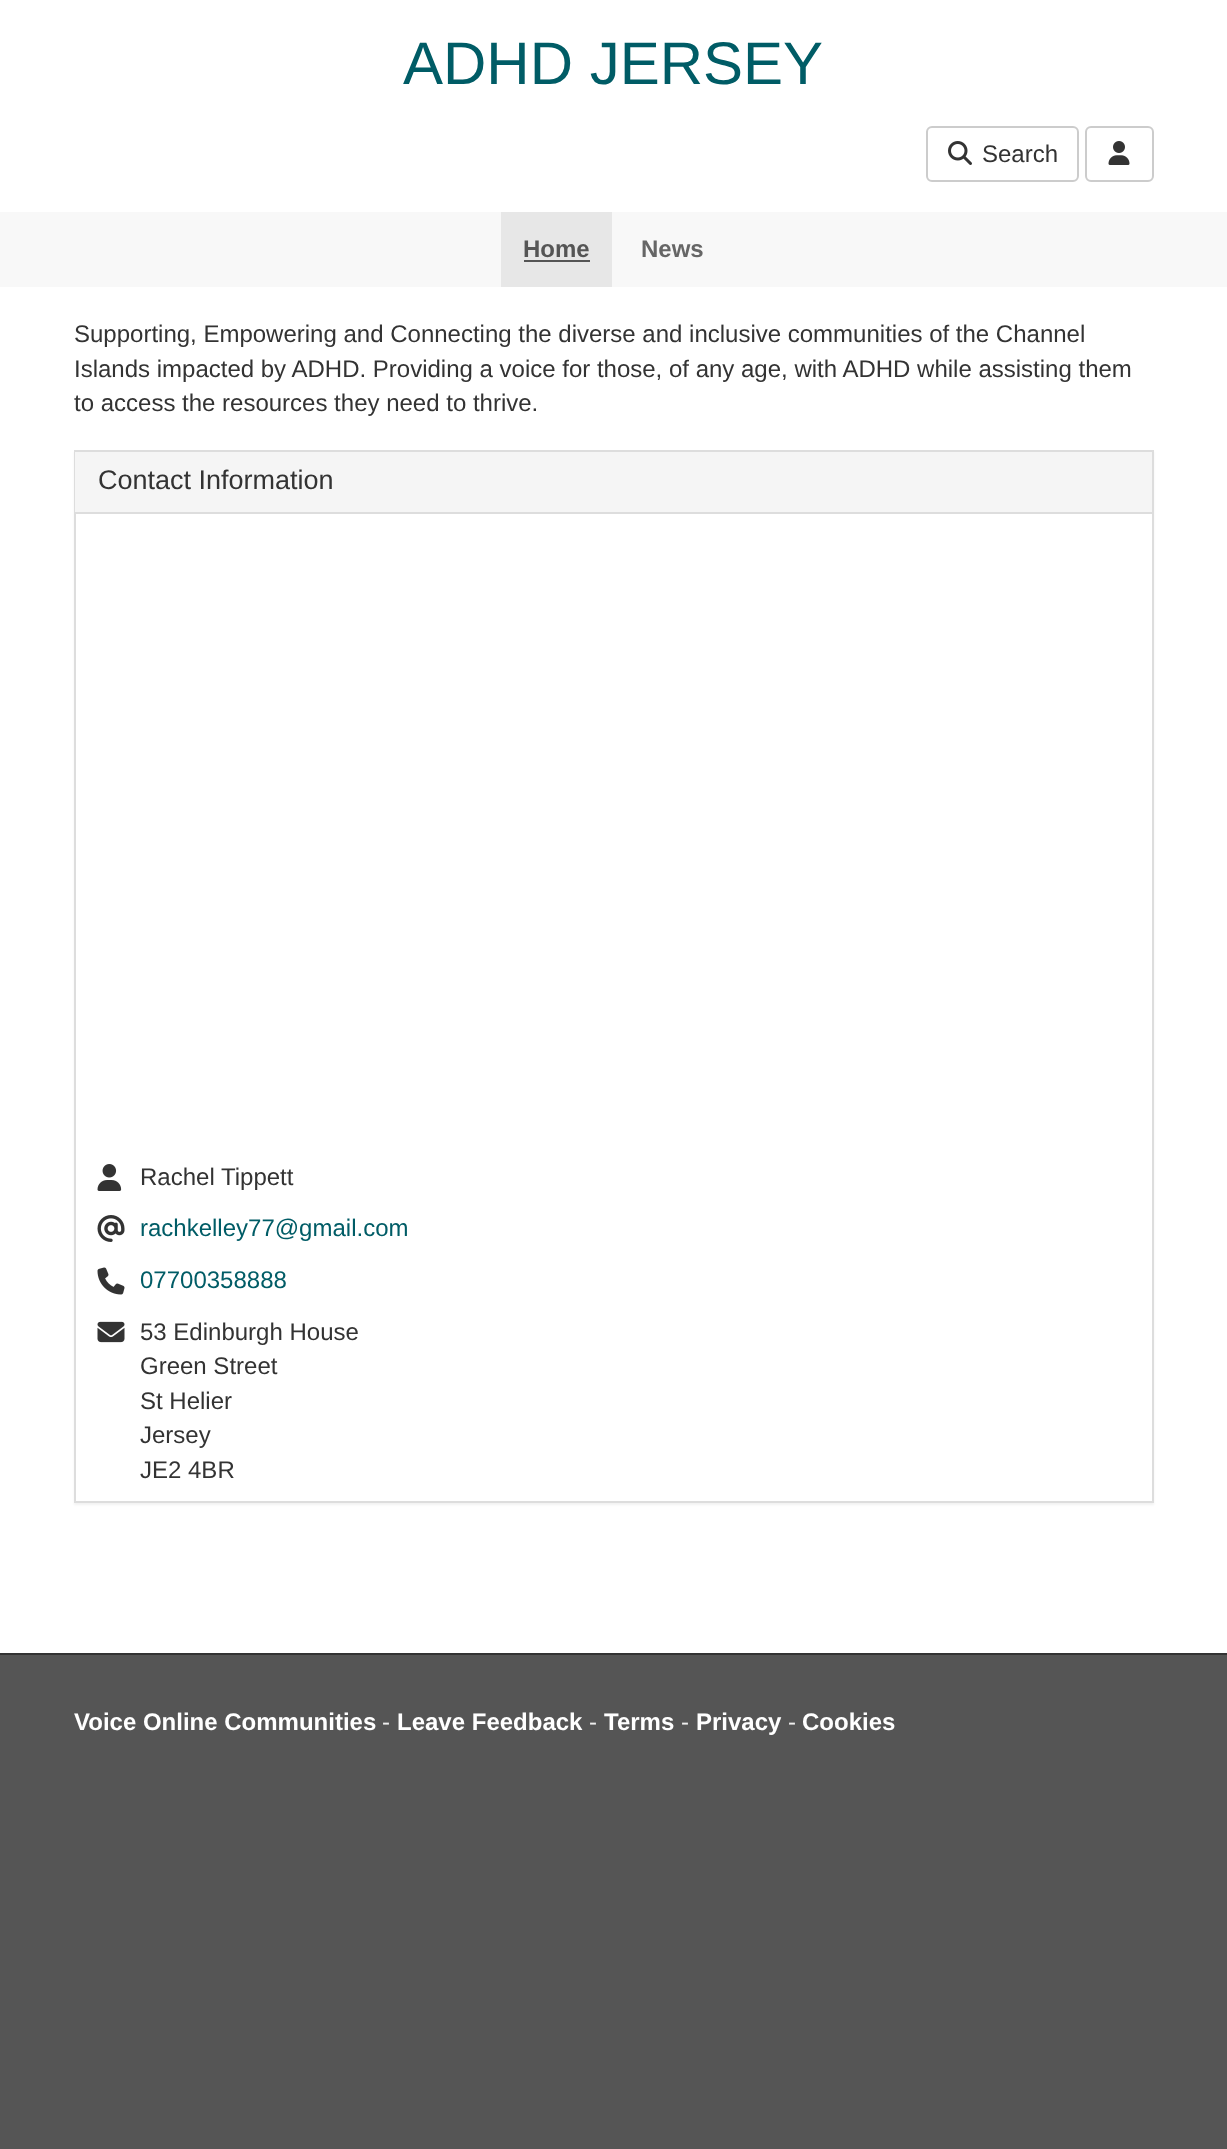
(async () => {
const canvas = document.querySelector("canvas")
canvas.width = 1227
canvas.height = 2149
const c = canvas.getContext("2d")
c.miterLimit = 4
c.fontKerning = "normal"
function T(s,x,y){c.fillText(s,x,y)}
function R(x,y,w,h){c.fillRect(x,y,w,h)}
async function I(src,x,y,w,h){const img=new Image();img.src=src;await img.decode();c.drawImage(img,x,y,w,h)}
let path
c.fillStyle="#fff"
R(0,0,1227,2149)
c.font="60px Liberation Sans"
c.fillStyle="#005c66"
T("ADHD JERSEY",403,84)
c.beginPath()
c.roundRect(927,127,151,54,5)
c.strokeStyle="#ccc"
c.lineWidth=2
c.stroke()
await I("1.png",948,141,24,24)
c.font="24px Liberation Sans"
c.fillStyle="#333"
T("Search",982,162)
c.beginPath()
c.roundRect(1086,127,67,54,5)
c.stroke()
await I("2.png",1108,141,22,24)
c.fillStyle="#f8f8f8"
R(0,212,1227,75)
c.fillStyle="#e7e7e7"
R(501,212,111,75)
c.font="bold 24px Liberation Sans"
c.fillStyle="#555"
T("Home",523,257)
R(524,260,66,2)
c.fillStyle="#666"
T("News",641,257)
c.font="24px Liberation Sans"
c.fillStyle="#333"
T("Supporting, Empowering and Connecting the diverse and inclusive communities of the Channel",74,342)
T("Islands impacted by ADHD. Providing a voice for those, of any age, with ADHD while assisting them",74,377)
T("to access the resources they need to thrive.",74,411)
c.fillStyle="#0000000d"
c.filter="blur(1px)"
c.beginPath()
c.rect(74,452,1080,1053)
c.fill()
c.filter="none"
c.fillStyle="#fff"
R(76,514,1076,987)
c.strokeStyle="#ddd"
c.strokeRect(75,451,1078,1051)
c.fillStyle="#f5f5f5"
R(75,452,1077,60)
c.fillStyle="#ddd"
R(75,512,1077,2)
c.font="27px Liberation Sans"
c.fillStyle="#333"
T("Contact Information",98,489)
await I("3.png",97,1164,25,27)
c.font="24px Liberation Sans"
T("Rachel Tippett",140,1185)
await I("4.png",97,1215,28,27)
c.fillStyle="#005c66"
T("rachkelley77@gmail.com",140,1236)
await I("5.png",97,1267,28,28)
T("07700358888",140,1288)
await I("6.png",97,1321,28,22)
c.fillStyle="#333"
T("53 Edinburgh House",140,1340)
T("Green Street",140,1374)
T("St Helier",140,1409)
T("Jersey",140,1443)
T("JE2 4BR",140,1478)
c.fillStyle="#555"
path = new Path2D("M-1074 1653v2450h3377v-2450h-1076v300h-1227v-300z")
c.fill(path)
R(0,1655,1227,298)
c.fillStyle="#333"
R(0,1653,1227,2)
c.font="bold 24px Liberation Sans"
c.fillStyle="#fff"
T("Voice Online Communities",74,1730)
c.font="24px Liberation Sans"
c.fillStyle="#eee"
T("-",382,1730)
c.font="bold 24px Liberation Sans"
c.fillStyle="#fff"
T("Leave Feedback",397,1730)
c.font="24px Liberation Sans"
c.fillStyle="#eee"
T("-",589,1730)
c.font="bold 24px Liberation Sans"
c.fillStyle="#fff"
T("Terms",604,1730)
c.font="24px Liberation Sans"
c.fillStyle="#eee"
T("-",681,1730)
c.font="bold 24px Liberation Sans"
c.fillStyle="#fff"
T("Privacy",696,1730)
c.font="24px Liberation Sans"
c.fillStyle="#eee"
T("-",788,1730)
c.font="bold 24px Liberation Sans"
c.fillStyle="#fff"
T("Cookies",802,1730)
})()
